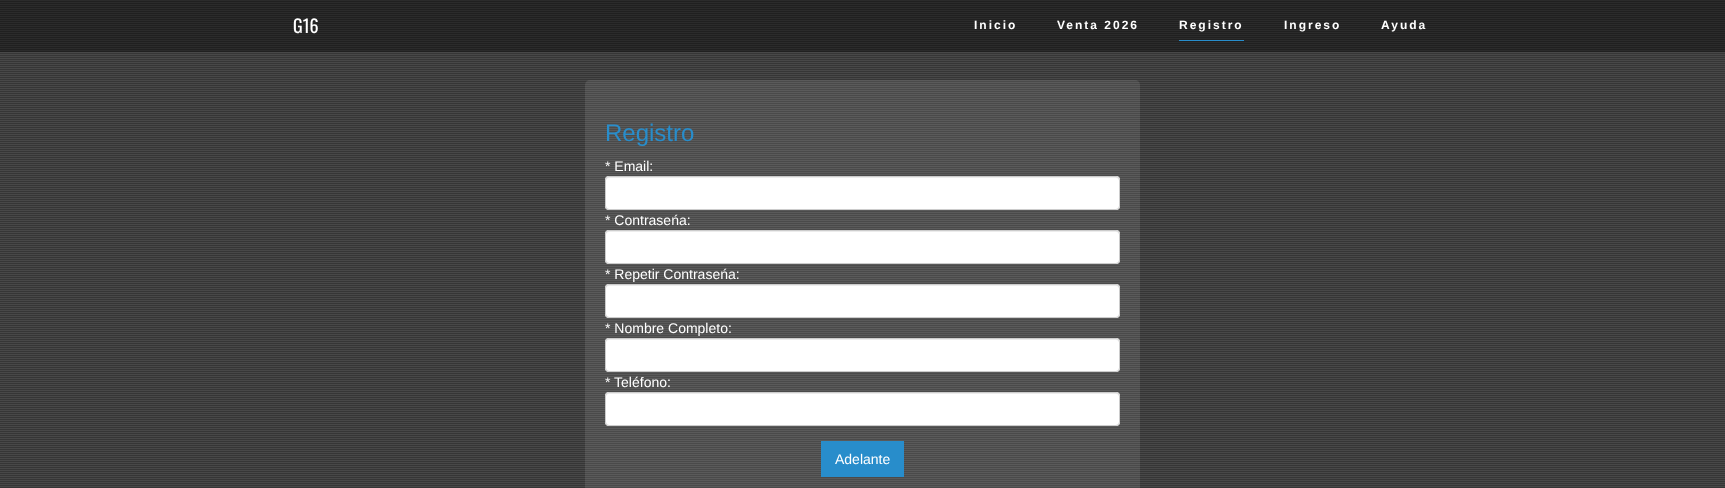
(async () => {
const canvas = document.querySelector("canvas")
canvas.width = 1725
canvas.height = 488
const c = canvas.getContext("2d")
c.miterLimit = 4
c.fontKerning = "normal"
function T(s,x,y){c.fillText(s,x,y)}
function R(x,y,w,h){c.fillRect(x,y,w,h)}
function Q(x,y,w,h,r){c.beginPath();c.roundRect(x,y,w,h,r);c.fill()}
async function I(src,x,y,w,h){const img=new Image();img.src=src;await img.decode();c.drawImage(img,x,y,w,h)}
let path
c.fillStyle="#484848"
R(0,0,1725,488)
await I("1.png",0,1,1725,487)
c.fillStyle="#00000066"
R(0,0,1725,52)
c.font="18px Oswald"
c.fillStyle="#fff"
T("G16",293,33)
c.letterSpacing="2px"
c.font="bold 12px Liberation Sans"
T("Inicio",974,29)
T("Venta 2026",1057,29)
c.fillStyle="#288dcb"
R(1179,40,65,1)
c.fillStyle="#fff"
T("Registro",1179,29)
T("Ingreso",1284,29)
T("Ayuda",1381,29)
c.fillStyle="#ffffff1a"
Q(585,80,555,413,5)
c.letterSpacing="0px"
c.font="24px Liberation Sans"
c.fillStyle="#288dcb"
T("Registro",605,141)
c.font="14px Liberation Sans"
c.fillStyle="#fff"
T("* Email:",605,171)
Q(605,176,515,34,4)
c.fillStyle="#ececec"
path = new Path2D("M609 178h507c2 0 3 1 3 3v-2l-2-2h-508c-2 0-3 2-3 4c0-2 1-3 3-3z")
c.fill(path)
c.beginPath()
c.roundRect(605.5,176.5,514,33,3.5)
c.strokeStyle="#ccc"
c.stroke()
c.fillStyle="#fff"
T("* Contraseńa:",605,225)
Q(605,230,515,34,4)
c.fillStyle="#ececec"
path = new Path2D("M609 232h507c2 0 3 1 3 3v-2l-2-2h-508c-2 0-3 2-3 4c0-2 1-3 3-3z")
c.fill(path)
c.beginPath()
c.roundRect(605.5,230.5,514,33,3.5)
c.stroke()
c.fillStyle="#fff"
T("* Repetir Contraseńa:",605,279)
Q(605,284,515,34,4)
c.fillStyle="#ececec"
path = new Path2D("M609 286h507c2 0 3 1 3 3v-2l-2-2h-508c-2 0-3 2-3 4c0-2 1-3 3-3z")
c.fill(path)
c.beginPath()
c.roundRect(605.5,284.5,514,33,3.5)
c.stroke()
c.fillStyle="#fff"
T("* Nombre Completo:",605,333)
Q(605,338,515,34,4)
c.fillStyle="#ececec"
path = new Path2D("M609 340h507c2 0 3 1 3 3v-2l-2-2h-508c-2 0-3 2-3 4c0-2 1-3 3-3z")
c.fill(path)
c.beginPath()
c.roundRect(605.5,338.5,514,33,3.5)
c.stroke()
c.fillStyle="#fff"
T("* Teléfono:",605,387)
Q(605,392,515,34,4)
c.fillStyle="#ececec"
path = new Path2D("M609 394h507c2 0 3 1 3 3v-2l-2-2h-508c-2 0-3 2-3 4c0-2 1-3 3-3z")
c.fill(path)
c.beginPath()
c.roundRect(605.5,392.5,514,33,3.5)
c.stroke()
c.fillStyle="#288dcb"
R(821,441,83,36)
c.fillStyle="#fff"
T("Adelante",835,464)
})()
